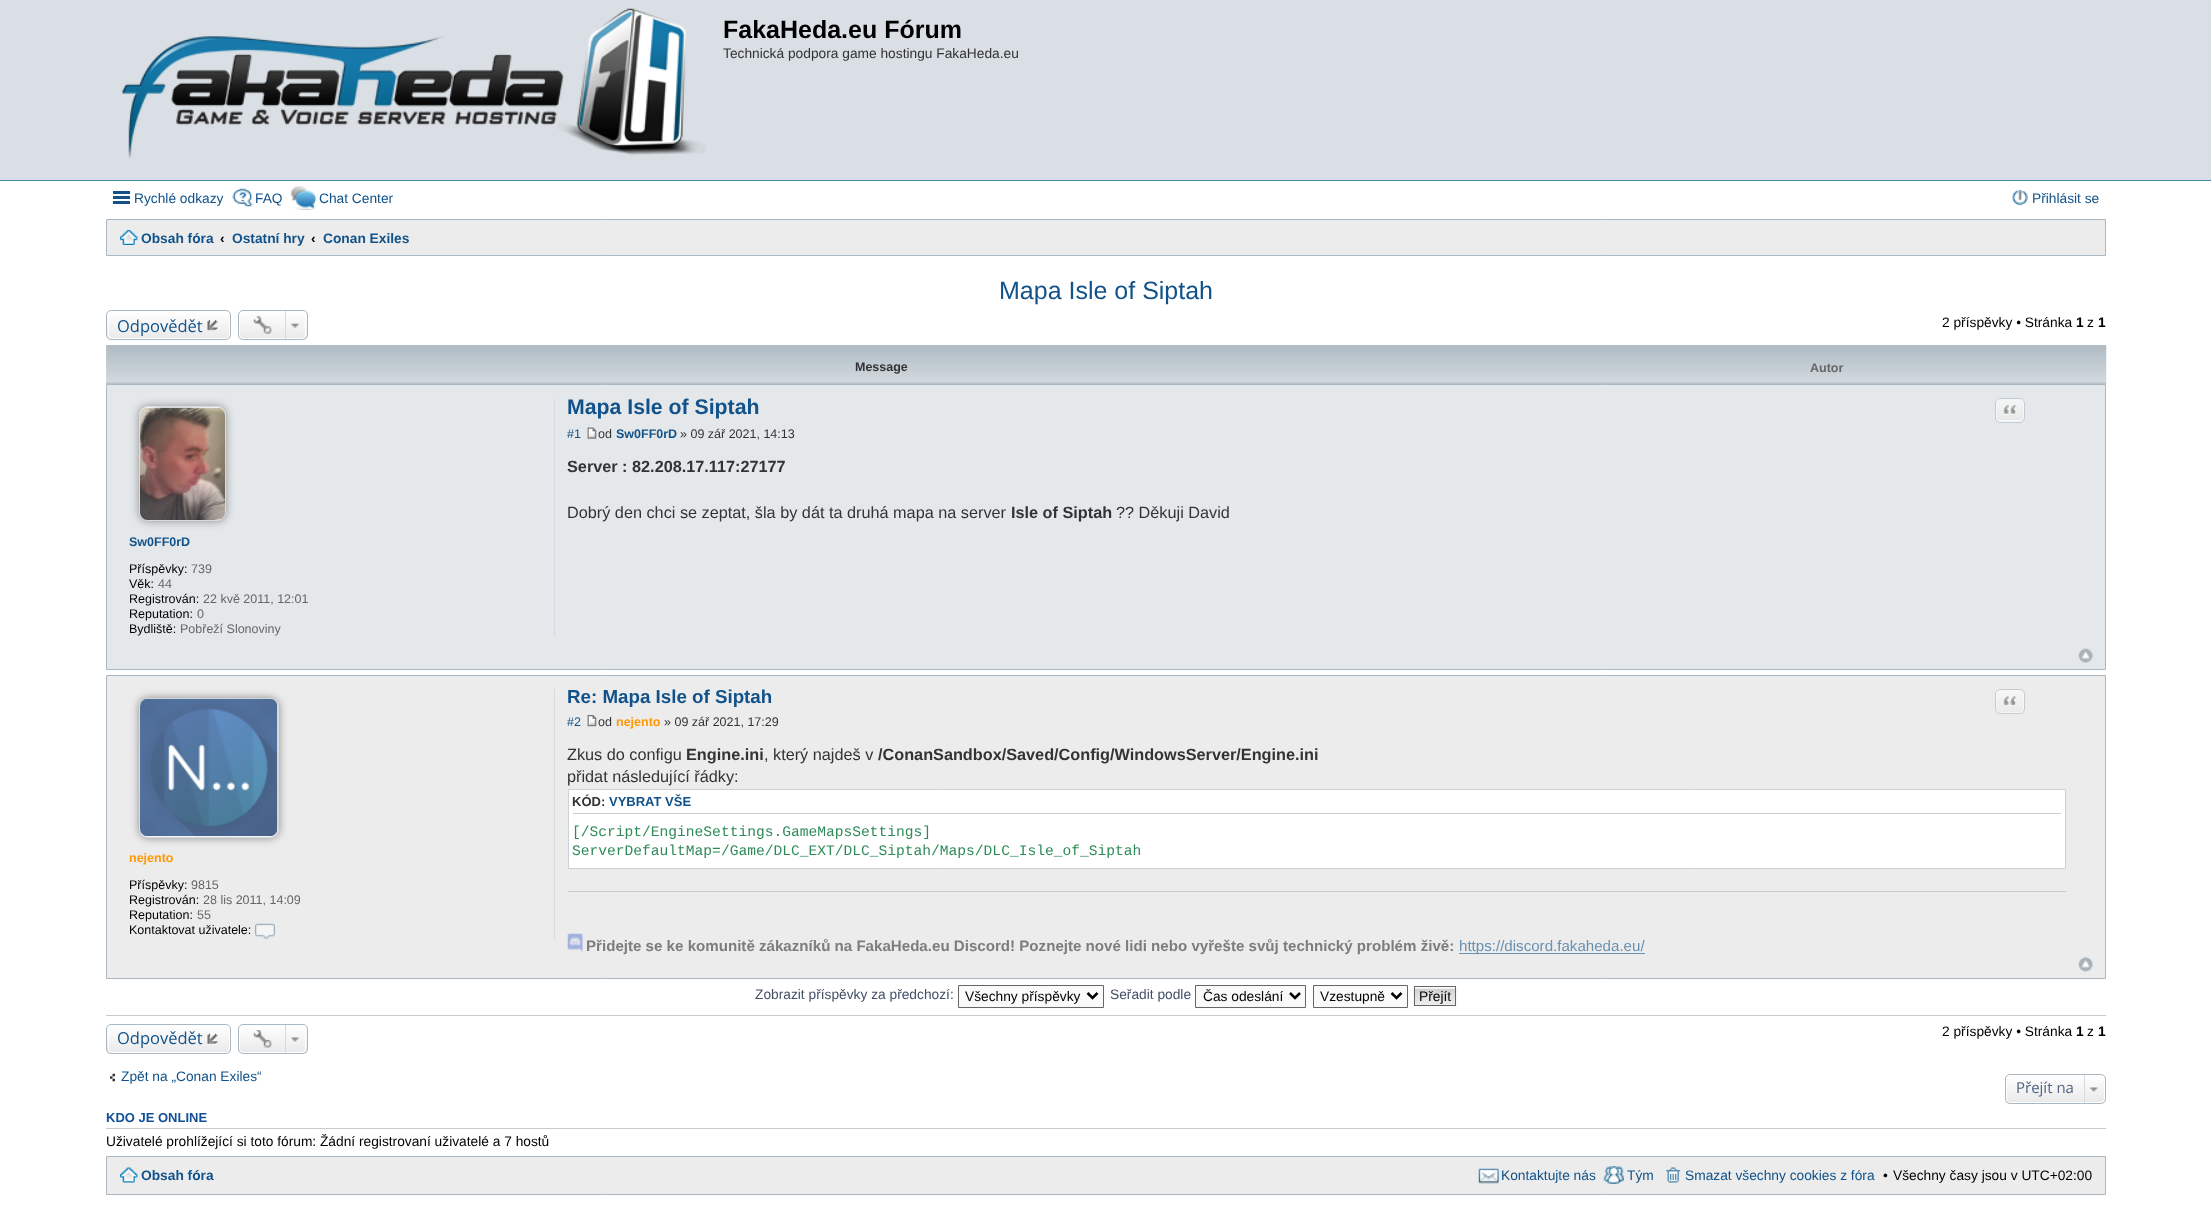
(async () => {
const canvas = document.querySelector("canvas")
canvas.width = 2211
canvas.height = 1207
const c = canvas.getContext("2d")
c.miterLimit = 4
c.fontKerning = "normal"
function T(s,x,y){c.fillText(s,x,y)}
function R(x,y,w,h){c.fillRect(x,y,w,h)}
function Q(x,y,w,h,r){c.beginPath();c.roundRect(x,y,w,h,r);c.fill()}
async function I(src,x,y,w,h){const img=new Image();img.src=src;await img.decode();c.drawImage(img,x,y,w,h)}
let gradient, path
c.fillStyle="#fff"
R(0,0,2211,1207)
c.fillStyle="#d9dfe4"
R(0,0,2211,180)
c.fillStyle="#4787a7"
R(0,180,2211,1)
await I("1.png",122,8,584,151)
c.font="bold 25px Liberation Sans"
c.fillStyle="#000"
T("FakaHeda.eu Fórum",723,38)
c.font="13.75px Liberation Sans"
c.fillStyle="#333"
T("Technická podpora game hostingu FakaHeda.eu",723,58)
c.fillStyle="#105289"
R(113,191,17,3)
R(113,196,17,3)
R(113,201,17,3)
T("Rychlé odkazy",134,203)
await I("2.png",232,188,21,19)
T("FAQ",255,203)
await I("3.png",291,186,26,24)
T("Chat Center",319,203)
await I("4.png",2012,189,16,17)
T("Přihlásit se",2032,203)
c.fillStyle="#ececec"
c.beginPath()
c.rect(106.5,219.5,1999,36)
c.fill()
c.strokeStyle="#a9b8c2"
c.stroke()
await I("5.png",120,230,18,15)
c.font="bold 13.75px Liberation Sans"
c.fillStyle="#105289"
T("Obsah fóra",141,243)
c.fillStyle="#000"
T("‹",220,243)
c.fillStyle="#105289"
T("Ostatní hry",232,243)
c.fillStyle="#000"
T("‹",311,243)
c.fillStyle="#105289"
T("Conan Exiles",323,243)
c.font="25px Liberation Sans"
T("Mapa Isle of Siptah",999,299)
c.save()
c.beginPath()
c.roundRect(106,310,125,30,5)
c.clip()
gradient = c.createLinearGradient(169,311,169,339)
gradient.addColorStop(0,"#fff")
gradient.addColorStop(1,"#e9e9e9")
c.fillStyle = gradient
R(106,311,125,28)
c.restore()
c.beginPath()
c.roundRect(108.5,311.5,121,27,3.5)
c.strokeStyle="#fff"
c.stroke()
c.beginPath()
c.roundRect(106.5,310.5,124,29,4.5)
c.strokeStyle="#a9b8c2"
c.stroke()
c.font="16.5px Open Sans"
T("Odpovědět",117,332)
await I("6.png",207,319,11,12)
c.save()
c.beginPath()
c.roundRect(238,310,70,30,5)
c.clip()
gradient = c.createLinearGradient(273,311,273,339)
gradient.addColorStop(0,"#fff")
gradient.addColorStop(1,"#e9e9e9")
c.fillStyle = gradient
R(238,311,70,28)
c.restore()
c.beginPath()
c.roundRect(239.5,311.5,66,27,3.5)
c.strokeStyle="#fff"
c.stroke()
c.beginPath()
c.roundRect(238.5,310.5,69,29,4.5)
c.strokeStyle="#a9b8c2"
c.stroke()
await I("7.png",253,316,19,19)
await I("8.png",291,323,9,6)
c.fillStyle="#dadada"
R(285,311,1,28)
c.font="13.75px Liberation Sans"
c.fillStyle="#000"
T("2 příspěvky • Stránka",1942,327)
c.font="bold 13.75px Liberation Sans"
T("1",2076,327)
c.font="13.75px Liberation Sans"
T("z",2087,327)
c.font="bold 13.75px Liberation Sans"
T("1",2098,327)
c.fillStyle="#d3d9de"
R(106,345,2000,39)
await I("9.png",106,345,2001,39)
c.font="bold 12.5px Liberation Sans"
c.fillStyle="#333"
T("Message",855,371)
c.fillStyle="#666"
T("Autor",1810,372)
c.fillStyle="#e5e8ea"
c.beginPath()
c.rect(106.5,384.5,1999,285)
c.fill()
c.stroke()
c.font="bold 21.25px Liberation Sans"
c.fillStyle="#105289"
T("Mapa Isle of Siptah",567,414)
c.fillStyle="#f5f6f7"
Q(1995,398,30,25,5)
c.save()
c.beginPath()
c.roundRect(1995,398,30,25,5)
c.clip()
gradient = c.createLinearGradient(2010,399,2010,421)
gradient.addColorStop(0,"#f5f6f7")
gradient.addColorStop(1,"#e7e9e9")
c.fillStyle = gradient
R(1995,399,30,22)
c.restore()
c.beginPath()
c.roundRect(1996.5,399.5,27,21,3.5)
c.strokeStyle="#f5f6f7"
c.stroke()
c.beginPath()
c.roundRect(1995.5,398.5,29,24,4.5)
c.strokeStyle="#c1cbd2"
c.stroke()
await I("10.png",2002,405,15,10)
c.font="12.5px Liberation Sans"
c.fillStyle="#105289"
T("#1",567,438)
await I("11.png",587,427,10,12)
c.fillStyle="#333"
T("od",598,438)
c.font="bold 12.5px Liberation Sans"
c.fillStyle="#105289"
T("Sw0FF0rD",616,438)
c.font="12.5px Liberation Sans"
c.fillStyle="#333"
T("» 09 zář 2021, 14:13",680,438)
c.font="bold 16.25px Liberation Sans"
T("Server : 82.208.17.117:27177",567,472)
c.font="16.25px Liberation Sans"
T("Dobrý den chci se zeptat, šla by dát ta druhá mapa na server",567,518)
c.font="bold 16.25px Liberation Sans"
T("Isle of Siptah",1011,518)
c.font="16.25px Liberation Sans"
T("?? Děkuji David",1116,518)
c.fillStyle="#d5dbe0"
R(554,398,1,238)
c.fillStyle="#8a8a8b"
c.filter="blur(4.5px)"
c.beginPath()
c.roundRect(139,406,87,115,9)
c.fill()
c.filter="none"
c.fillStyle="#fcfdfd"
c.beginPath()
c.roundRect(139.5,406.5,86,114,8.5)
c.fill()
c.strokeStyle="#d5dbdf"
c.stroke()
await I("12.png",140,407,85,113)
c.font="bold 12.5px Liberation Sans"
c.fillStyle="#105289"
T("Sw0FF0rD",129,546)
c.font="12.5px Liberation Sans"
c.fillStyle="#000"
T("Příspěvky:",129,573)
c.fillStyle="#666"
T("739",191,573)
c.fillStyle="#000"
T("Věk:",129,588)
c.fillStyle="#666"
T("44",158,588)
c.fillStyle="#000"
T("Registrován:",129,603)
c.fillStyle="#666"
T("22 kvě 2011, 12:01",203,603)
c.fillStyle="#000"
T("Reputation:",129,618)
c.fillStyle="#666"
T("0",197,618)
c.fillStyle="#000"
T("Bydliště:",129,633)
c.fillStyle="#666"
T("Pobřeží Slonoviny",180,633)
await I("13.png",2078,648,15,15)
c.fillStyle="#ececec"
c.beginPath()
c.rect(106.5,675.5,1999,303)
c.fill()
c.strokeStyle="#a9b8c2"
c.stroke()
c.fillStyle="#d5dbe0"
R(554,689,1,250)
c.fillStyle="#8b8b8b"
c.filter="blur(4.5px)"
c.beginPath()
c.roundRect(139,698,140,140,9)
c.fill()
c.filter="none"
c.fillStyle="#fdfdfd"
c.beginPath()
c.roundRect(139.5,698.5,139,139,8.5)
c.fill()
c.strokeStyle="#d6dbdf"
c.stroke()
await I("14.png",140,698,138,139)
c.font="bold 12.5px Liberation Sans"
c.fillStyle="#f90"
T("nejento",129,862)
c.font="12.5px Liberation Sans"
c.fillStyle="#000"
T("Příspěvky:",129,889)
c.fillStyle="#666"
T("9815",191,889)
c.fillStyle="#000"
T("Registrován:",129,904)
c.fillStyle="#666"
T("28 lis 2011, 14:09",203,904)
c.fillStyle="#000"
T("Reputation:",129,919)
c.fillStyle="#666"
T("55",197,919)
c.fillStyle="#000"
T("Kontaktovat uživatele:",129,934)
await I("15.png",255,923,20,16)
c.font="bold 18.75px Liberation Sans"
c.fillStyle="#105289"
T("Re: Mapa Isle of Siptah",567,703)
c.save()
c.beginPath()
c.roundRect(1995,689,30,25,5)
c.clip()
gradient = c.createLinearGradient(2010,690,2010,713)
gradient.addColorStop(0,"#f7f7f7")
gradient.addColorStop(1,"#eaeaea")
c.fillStyle = gradient
R(1995,690,30,23)
c.restore()
c.beginPath()
c.roundRect(1996.5,690.5,27,22,3.5)
c.strokeStyle="#f7f7f7"
c.stroke()
c.beginPath()
c.roundRect(1995.5,689.5,29,24,4.5)
c.strokeStyle="#c4cdd3"
c.stroke()
await I("16.png",2002,695,14,10)
c.font="12.5px Liberation Sans"
T("#2",567,726)
await I("17.png",587,715,10,12)
c.fillStyle="#333"
T("od",598,726)
c.font="bold 12.5px Liberation Sans"
c.fillStyle="#f90"
T("nejento",616,726)
c.font="12.5px Liberation Sans"
c.fillStyle="#333"
T("» 09 zář 2021, 17:29",664,726)
c.font="16.25px Liberation Sans"
T("Zkus do configu",567,760)
c.font="bold 16.25px Liberation Sans"
T("Engine.ini",686,760)
c.font="16.25px Liberation Sans"
T(", který najdeš v",764,760)
c.font="bold 16.25px Liberation Sans"
T("/ConanSandbox/Saved/Config/WindowsServer/Engine.ini",878,760)
c.font="16.25px Liberation Sans"
T("přidat následující řádky:",567,782)
c.fillStyle="#fff"
c.beginPath()
c.rect(568.5,789.5,1497,79)
c.fill()
c.strokeStyle="#c9d2d8"
c.stroke()
c.fillStyle="#ccc"
R(573,813,1488,1)
c.font="bold 13px Liberation Sans"
c.fillStyle="#333"
T("KÓD:",572,806)
c.fillStyle="#105289"
T("VYBRAT VŠE",609,806)
c.font="14.6px Liberation Mono"
c.fillStyle="#2e8b57"
T("[/Script/EngineSettings.GameMapsSettings]",572,836)
T("ServerDefaultMap=/Game/DLC_EXT/DLC_Siptah/Maps/DLC_Isle_of_Siptah",572,855)
c.fillStyle="#c4cdd3"
R(568,891,1498,1)
await I("18.png",567,933,16,19)
c.font="bold 15.12px Liberation Sans"
c.fillStyle="#7d7d7d"
T("Přidejte se ke komunitě zákazníků na FakaHeda.eu Discord! Poznejte nové lidi nebo vyřešte svůj technický problém živě:",586,951)
c.fillStyle="#6890b1"
R(1459,953,186,1)
c.font="15.12px Liberation Sans"
T("https://discord.fakaheda.eu/",1459,951)
await I("19.png",2078,957,15,15)
c.font="13.75px Liberation Sans"
c.fillStyle="#425067"
T("Zobrazit příspěvky za předchozí:",755,999)
c.fillStyle="#fafafa"
c.beginPath()
c.rect(958.5,985.5,145,22)
c.fill()
c.strokeStyle="#666"
c.stroke()
path = new Path2D("M1087.5 993l5 5l5-5")
c.strokeStyle="#000"
c.lineWidth=2.5
c.stroke(path)
c.fillStyle="#000"
T("Všechny příspěvky",965,1001)
c.fillStyle="#425067"
T("Seřadit podle",1110,999)
c.fillStyle="#fafafa"
c.beginPath()
c.rect(1195.5,985.5,110,22)
c.fill()
c.strokeStyle="#666"
c.lineWidth=1
c.stroke()
path = new Path2D("M1290 993l5 5l5-5")
c.strokeStyle="#000"
c.lineWidth=2.5
c.stroke(path)
c.fillStyle="#000"
T("Čas odeslání",1203,1001)
c.fillStyle="#fafafa"
c.beginPath()
c.rect(1313.5,985.5,94,22)
c.fill()
c.strokeStyle="#666"
c.lineWidth=1
c.stroke()
path = new Path2D("M1391.5 993l5 5l5-5")
c.strokeStyle="#000"
c.lineWidth=2.5
c.stroke(path)
c.fillStyle="#000"
T("Vzestupně",1320,1001)
c.fillStyle="#fafafa"
R(1415,987,40,1)
await I("20.png",1413,988,44,19)
c.strokeStyle="#666"
c.lineWidth=1
c.strokeRect(1414.5,986.5,41,19)
c.fillStyle="#000"
T("Přejít",1419,1001)
c.fillStyle="#ccc"
R(106,1015,2000,1)
c.save()
c.beginPath()
c.roundRect(106,1024,125,30,5)
c.clip()
gradient = c.createLinearGradient(169,1025,169,1053)
gradient.addColorStop(0,"#fff")
gradient.addColorStop(1,"#e9e9e9")
c.fillStyle = gradient
R(106,1025,125,28)
c.restore()
c.beginPath()
c.roundRect(108.5,1025.5,121,27,3.5)
c.strokeStyle="#fff"
c.stroke()
c.beginPath()
c.roundRect(106.5,1024.5,124,29,4.5)
c.strokeStyle="#a9b8c2"
c.stroke()
c.font="16.5px Open Sans"
c.fillStyle="#105289"
T("Odpovědět",117,1044)
await I("21.png",207,1033,11,12)
c.save()
c.beginPath()
c.roundRect(238,1024,70,30,5)
c.clip()
gradient = c.createLinearGradient(273,1025,273,1053)
gradient.addColorStop(0,"#fff")
gradient.addColorStop(1,"#e9e9e9")
c.fillStyle = gradient
R(238,1025,70,28)
c.restore()
c.beginPath()
c.roundRect(239.5,1025.5,66,27,3.5)
c.strokeStyle="#fff"
c.stroke()
c.beginPath()
c.roundRect(238.5,1024.5,69,29,4.5)
c.strokeStyle="#a9b8c2"
c.stroke()
await I("22.png",253,1030,19,18)
await I("23.png",291,1037,8,5)
c.fillStyle="#dadada"
R(285,1025,1,28)
c.font="13.75px Liberation Sans"
c.fillStyle="#000"
T("2 příspěvky • Stránka",1942,1036)
c.font="bold 13.75px Liberation Sans"
T("1",2076,1036)
c.font="13.75px Liberation Sans"
T("z",2087,1036)
c.font="bold 13.75px Liberation Sans"
T("1",2098,1036)
await I("24.png",110,1073,5,9)
c.font="13.75px Liberation Sans"
c.fillStyle="#105289"
T("Zpět na „Conan Exiles“",121,1081)
c.save()
c.beginPath()
c.roundRect(2005,1074,101,30,5)
c.clip()
gradient = c.createLinearGradient(2056,1075,2056,1103)
gradient.addColorStop(0,"#fff")
gradient.addColorStop(1,"#e9e9e9")
c.fillStyle = gradient
R(2005,1075,101,28)
c.restore()
c.beginPath()
c.roundRect(2006.5,1075.5,98,27,3.5)
c.strokeStyle="#fff"
c.stroke()
c.beginPath()
c.roundRect(2005.5,1074.5,100,29,4.5)
c.strokeStyle="#a9b8c2"
c.stroke()
c.font="15px Open Sans"
c.fillStyle="#536482"
T("Přejít na",2016,1093)
await I("25.png",2089,1087,9,5)
c.fillStyle="#dadada"
R(2084,1075,1,28)
c.fillStyle="#ccc"
R(106,1128,2000,1)
c.font="bold 13px Liberation Sans"
c.fillStyle="#115098"
T("KDO JE ONLINE",106,1122)
c.font="13.75px Liberation Sans"
c.fillStyle="#000"
T("Uživatelé prohlížející si toto fórum: Žádní registrovaní uživatelé a 7 hostů",106,1146)
c.fillStyle="#ececec"
c.beginPath()
c.rect(106.5,1156.5,1999,38)
c.fill()
c.stroke()
await I("26.png",120,1167,18,16)
c.font="bold 13.75px Liberation Sans"
c.fillStyle="#105289"
T("Obsah fóra",141,1180)
await I("27.png",1478,1168,21,16)
c.font="13.75px Liberation Sans"
T("Kontaktujte nás",1501,1180)
await I("28.png",1603,1166,21,18)
T("Tým",1627,1180)
await I("29.png",1666,1167,15,16)
T("Smazat všechny cookies z fóra",1685,1180)
c.fillStyle="#000"
T("•",1883,1180)
T("Všechny časy jsou v UTC+02:00",1893,1180)
})()
